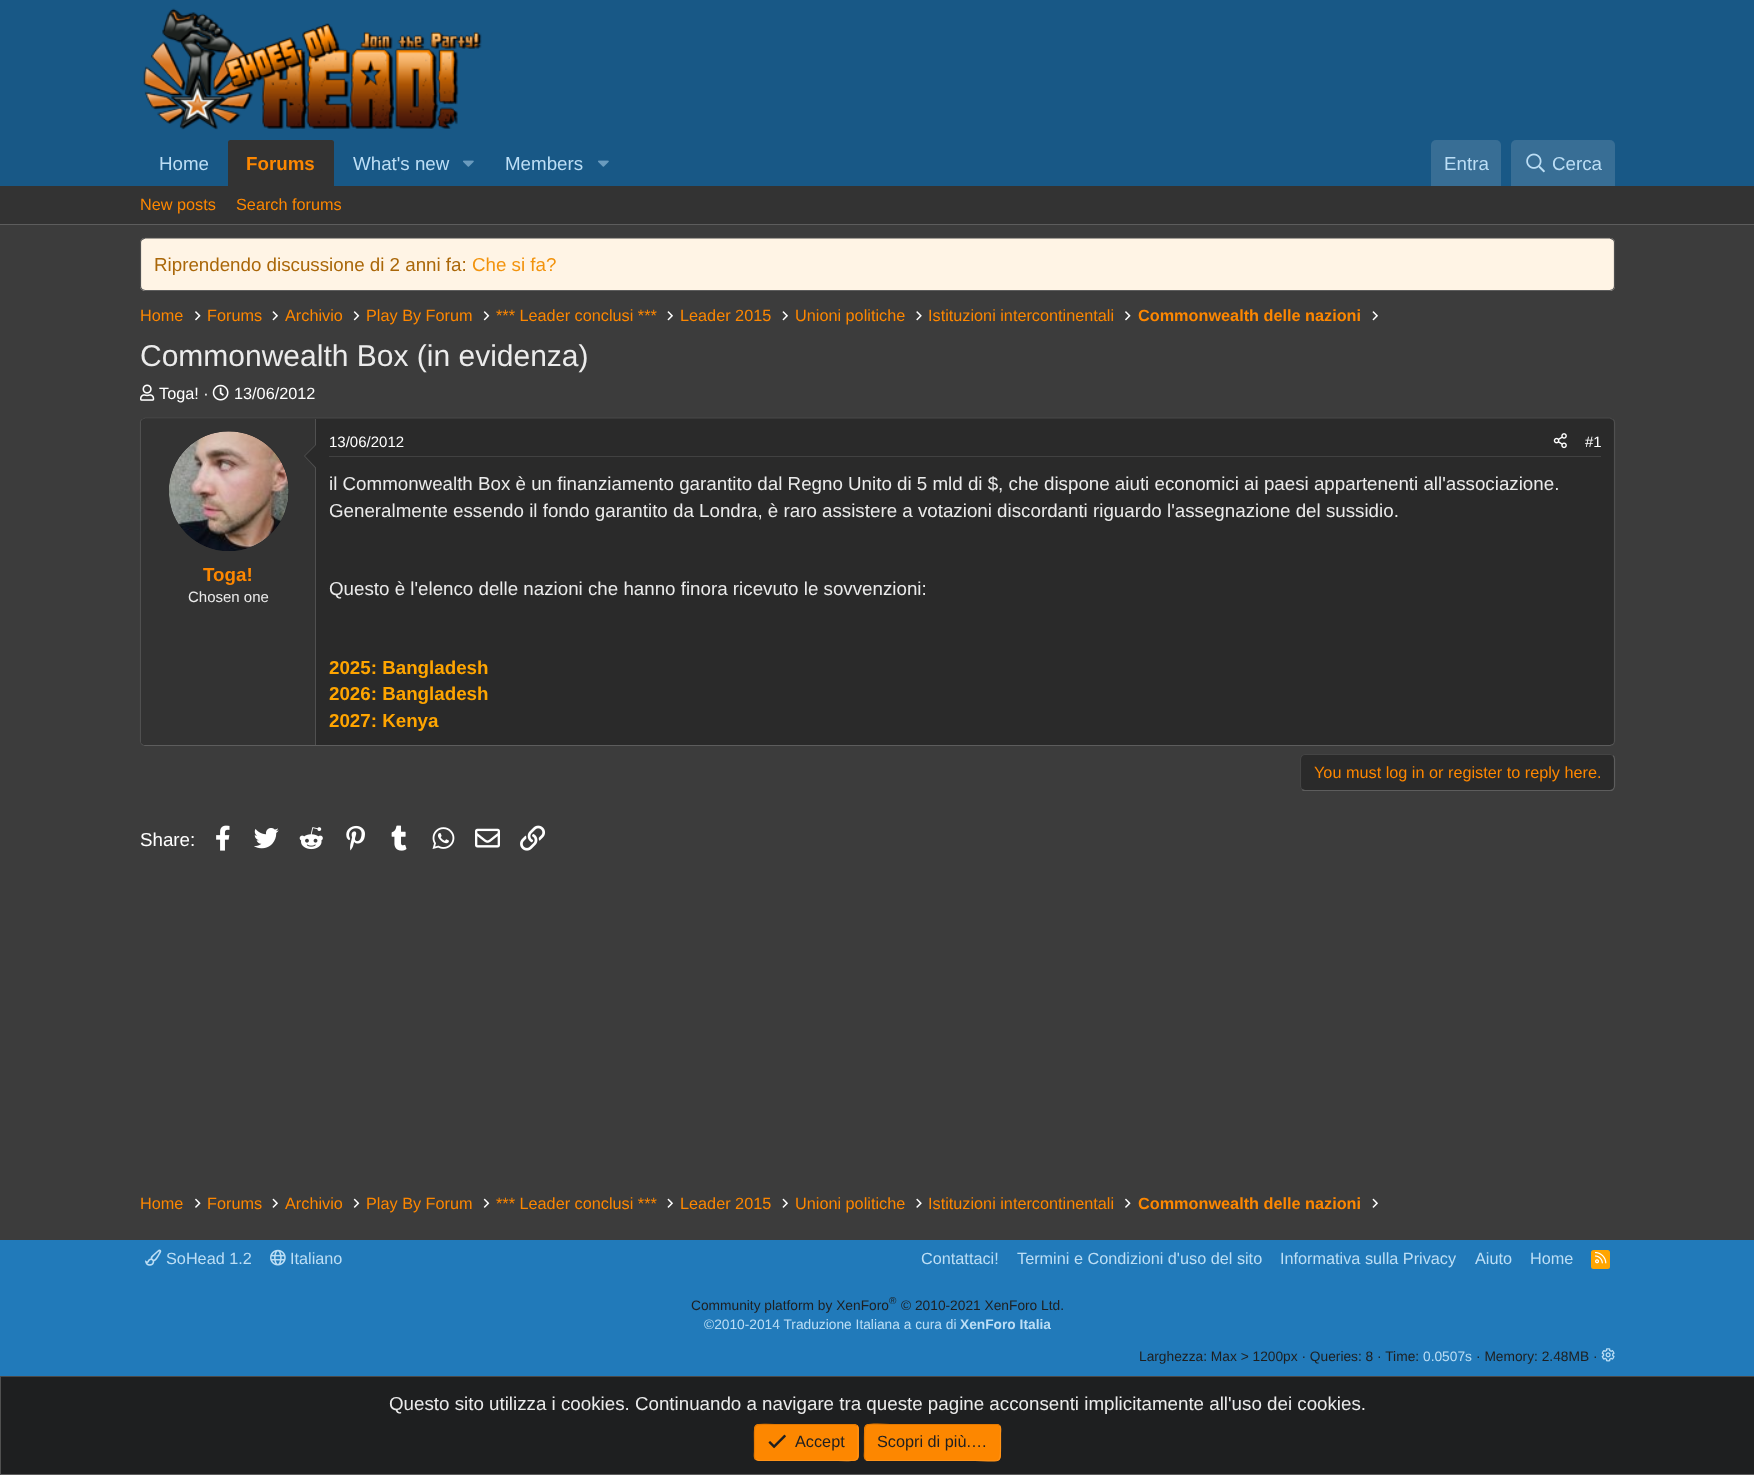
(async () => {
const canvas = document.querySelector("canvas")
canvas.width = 1754
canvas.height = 1475
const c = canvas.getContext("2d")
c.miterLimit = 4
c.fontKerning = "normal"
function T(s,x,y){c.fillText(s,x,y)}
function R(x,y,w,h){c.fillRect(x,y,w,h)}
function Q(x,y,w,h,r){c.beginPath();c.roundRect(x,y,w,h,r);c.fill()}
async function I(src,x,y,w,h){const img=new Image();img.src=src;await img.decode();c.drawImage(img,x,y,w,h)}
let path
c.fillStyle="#3c3c3c"
R(0,0,1754,1475)
c.fillStyle="#185886"
R(0,0,1754,186)
await I("1.png",143,8,339,122)
c.font="18.75px Liberation Sans"
c.fillStyle="#bcdef5"
T("Home",159,170)
c.fillStyle="#333"
c.beginPath()
c.roundRect(228,140,106,46,[2.5,2.5,0,0])
c.fill()
c.font="bold 18.75px Liberation Sans"
c.fillStyle="#fd8700"
T("Forums",246,170)
c.font="18.75px Liberation Sans"
c.fillStyle="#bcdef5"
T("What's new",353,170)
await I("2.png",463,160,11,7)
T("Members",505,170)
await I("2.png",598,160,11,7)
c.fillStyle="#386e95"
c.beginPath()
c.roundRect(1431,140,70,46,[5,5,0,0])
c.fill()
c.fillStyle="#bcdef5"
T("Entra",1444,170)
c.fillStyle="#386e95"
c.beginPath()
c.roundRect(1511,140,104,46,[5,5,0,0])
c.fill()
await I("3.png",1526,153,19,20)
c.fillStyle="#bcdef5"
T("Cerca",1552,170)
c.fillStyle="#333"
R(0,186,1754,38)
c.fillStyle="#5d5d5d"
R(0,224,1754,1)
c.font="16.25px Liberation Sans"
c.fillStyle="#fd8700"
T("New posts",140,210)
T("Search forums",236,210)
c.fillStyle="#fff4e5"
Q(140,238,1475,53,5)
path = new Path2D("M142 239.5l3-1.5h1465l3 1.5")
c.strokeStyle="#494949"
c.lineWidth=1.2
c.stroke(path)
path = new Path2D("M1613 239.5c1 .5 1.5 2 1.5 3v43.5c0 1.5-.5 2.5-1.5 3.5")
c.strokeStyle="#505050"
c.stroke(path)
path = new Path2D("M1613 289.5l-3 1h-1465l-3-1")
c.strokeStyle="#5d5d5d"
c.stroke(path)
path = new Path2D("M142 289.5c-1-1-1.5-2-1.5-3.5v-43.5c0-1 .5-2.5 1.5-3")
c.strokeStyle="#505050"
c.stroke(path)
c.font="18.75px Liberation Sans"
c.fillStyle="#aa6709"
T("Riprendendo discussione di 2 anni fa:",154,271)
c.fillStyle="#f2930d"
T("Che si fa?",472,271)
c.font="16.25px Liberation Sans"
c.fillStyle="#fd8700"
T("Home",140,321)
await I("4.png",195,311,6,10)
T("Forums",207,321)
await I("5.png",272,311,6,10)
T("Archivio",285,321)
await I("6.png",353,311,7,10)
T("Play By Forum",366,321)
await I("6.png",483,311,7,10)
T("*** Leader conclusi ***",496,321)
await I("5.png",667,311,6,10)
T("Leader 2015",680,321)
await I("5.png",782,311,6,10)
T("Unioni politiche",795,321)
await I("7.png",916,311,6,10)
T("Istituzioni intercontinentali",928,321)
await I("4.png",1125,311,6,10)
c.font="bold 16.25px Liberation Sans"
T("Commonwealth delle nazioni",1138,321)
await I("5.png",1372,311,6,10)
c.font="30px Liberation Sans"
c.fillStyle="#ebebeb"
T("Commonwealth Box (in evidenza)",140,366)
await I("8.png",140,384,15,17)
c.font="16.25px Liberation Sans"
c.fillStyle="#fff"
T("Toga! ·",159,399)
await I("9.png",212,384,17,17)
T("13/06/2012",234,399)
c.fillStyle="#2a2a2a"
Q(140,418,1475,328,5)
path = new Path2D("M142 419.5l3-1.5h1465l3 1.5")
c.strokeStyle="#494949"
c.stroke(path)
path = new Path2D("M1613 419.5c1 .5 1.5 2 1.5 3v318.5c0 1.5-.5 2.5-1.5 3.5")
c.strokeStyle="#505050"
c.stroke(path)
path = new Path2D("M1613 744.5l-3 1h-1465l-3-1")
c.strokeStyle="#5d5d5d"
c.stroke(path)
path = new Path2D("M142 744.5c-1-1-1.5-2-1.5-3.5v-318.5c0-1 .5-2.5 1.5-3")
c.strokeStyle="#505050"
c.stroke(path)
c.fillStyle="#333"
c.beginPath()
c.roundRect(141,419,175,326,[4,0,0,4])
c.fill()
c.fillStyle="#505050"
R(315,419,1,326)
c.fillStyle="#2a2a2a"
c.beginPath()
c.arc(229,491,60,0,7)
c.fill()
await I("10.png",169,431,120,120)
c.fillStyle="#505050"
path = new Path2D("M316 444v25l-12-13z")
c.fill(path)
c.fillStyle="#2a2a2a"
path = new Path2D("M316 445v22.5l-11-11.5z")
c.fill(path)
c.font="bold 18.75px Liberation Sans"
c.fillStyle="#fd8700"
T("Toga!",203,581)
c.font="15px Liberation Sans"
c.fillStyle="#ebebeb"
T("Chosen one",188,602)
c.fillStyle="#414141"
R(329,456,1272,1)
c.fillStyle="#fff"
T("13/06/2012",329,447)
await I("11.png",1553,433,14,16)
T("#1",1585,447)
c.font="18.75px Liberation Sans"
c.fillStyle="#ebebeb"
T("il Commonwealth Box è un finanziamento garantito dal Regno Unito di 5 mld di $, che dispone aiuti economici ai paesi appartenenti all'associazione.",329,490)
T("Generalmente essendo il fondo garantito da Londra, è raro assistere a votazioni discordanti riguardo l'assegnazione del sussidio.",329,517)
T("Questo è l'elenco delle nazioni che hanno finora ricevuto le sovvenzioni:",329,595)
c.font="bold 18.75px Liberation Sans"
c.fillStyle="#ffa500"
T("2025: Bangladesh",329,674)
T("2026: Bangladesh",329,700)
T("2027: Kenya",329,727)
c.fillStyle="#2a2a2a"
Q(1300,754,315,37,5)
path = new Path2D("M1613 755.5c1 1 1.5 2 1.5 3.5v27c0 1.5-.5 2.5-1.5 3.5c-.5 .5-2 1-3 1h-305c-1 0-2.5-.5-3-1")
c.strokeStyle="#5d5d5d"
c.stroke(path)
path = new Path2D("M1302 789.5c-1-1-1.5-2-1.5-3.5v-27c0-1.5 .5-2.5 1.5-3.5c.5-.5 2-1 3-1h305c1 0 2.5 .5 3 1")
c.strokeStyle="#444"
c.stroke(path)
c.font="16.25px Liberation Sans"
c.fillStyle="#fd8700"
T("You must log in or register to reply here.",1314,778)
c.font="18.75px Liberation Sans"
c.fillStyle="#fff"
T("Share:",140,846)
await I("12.png",216,825,14,26)
await I("13.png",254,828,25,21)
await I("14.png",299,827,24,23)
await I("15.png",346,825,19,26)
await I("16.png",391,825,16,26)
await I("17.png",432,827,23,22)
await I("18.png",475,828,25,20)
await I("19.png",520,825,26,26)
c.font="16.25px Liberation Sans"
c.fillStyle="#fd8700"
T("Home",140,1209)
await I("20.png",195,1198,6,10)
T("Forums",207,1209)
await I("21.png",272,1198,6,10)
T("Archivio",285,1209)
await I("22.png",353,1198,7,10)
T("Play By Forum",366,1209)
await I("22.png",483,1198,7,10)
T("*** Leader conclusi ***",496,1209)
await I("21.png",667,1198,6,10)
T("Leader 2015",680,1209)
await I("21.png",782,1198,6,10)
T("Unioni politiche",795,1209)
await I("23.png",916,1198,6,10)
T("Istituzioni intercontinentali",928,1209)
await I("20.png",1125,1198,6,10)
c.font="bold 16.25px Liberation Sans"
T("Commonwealth delle nazioni",1138,1209)
await I("21.png",1372,1198,6,10)
c.fillStyle="#217aba"
R(0,1240,1754,136)
await I("24.png",145,1249,17,17)
c.font="16.25px Liberation Sans"
c.fillStyle="#bcdef5"
T("SoHead 1.2",166,1264)
await I("25.png",270,1249,16,17)
T("Italiano",290,1264)
T("Contattaci!",921,1264)
T("Termini e Condizioni d'uso del sito",1017,1264)
T("Informativa sulla Privacy",1280,1264)
T("Aiuto",1475,1264)
T("Home",1530,1264)
c.fillStyle="#ffa500"
Q(1591,1250,19,19,2.5)
await I("26.png",1595,1251,12,13)
c.font="13.75px Liberation Sans"
c.fillStyle="#1e1f20"
T("Community platform by XenForo",691,1310)
c.font="10px Liberation Sans"
T("®",889,1304)
c.font="13.75px Liberation Sans"
T("© 2010-2021 XenForo Ltd.",901,1310)
c.fillStyle="#bcdef5"
T("©2010-2014 Traduzione Italiana a cura di",704,1329)
c.font="bold 13.75px Liberation Sans"
T("XenForo Italia",960,1329)
c.font="13.75px Liberation Sans"
c.fillStyle="#1e1f20"
T("Larghezza: Max > 1200px · Queries: 8 · Time:",1139,1361)
c.fillStyle="#bcdef5"
T("0.0507s",1423,1361)
c.fillStyle="#1e1f20"
T("· Memory: 2.48MB ·",1476,1361)
await I("27.png",1601,1348,14,14)
R(1,1377,1753,97)
c.fillStyle="#494949"
R(0,1376,1754,1)
c.fillStyle="#5d5d5d"
R(0,1474,1754,1)
c.fillStyle="#505050"
R(0,1376,1,99)
c.font="18.75px Liberation Sans"
c.fillStyle="#ebebeb"
T("Questo sito utilizza i cookies. Continuando a navigare tra queste pagine acconsenti implicitamente all'uso dei cookies.",389,1410)
c.fillStyle="#fd8700"
Q(754,1424,105,37,5)
path = new Path2D("M857 1425.5c2 2 1 5.5 1 8v9c0 21.5 3 18-20 18h-79l-3.5-1")
c.strokeStyle="#ff9318"
c.stroke(path)
path = new Path2D("M755.5 1459.5c-2-2-1-5.5-1-8v-9c0-21.5-3-18 20-18h79.5l3 1")
c.strokeStyle="#e47900"
c.stroke(path)
await I("28.png",768,1434,18,15)
c.font="16.25px Liberation Sans"
c.fillStyle="#1e1f20"
T("Accept",795,1447)
c.fillStyle="#fd8700"
Q(864,1424,137,37,5)
path = new Path2D("M999.5 1425.5c2 2 1 5.5 1 8v9c0 23.5 2 18-25.5 18h-108l-1.5-1")
c.strokeStyle="#ff9318"
c.stroke(path)
path = new Path2D("M865.5 1459.5c-2-2-1-5.5-1-8v-9c0-23.5-2-18 25.5-18h108l1.5 1")
c.strokeStyle="#e47900"
c.stroke(path)
c.fillStyle="#1e1f20"
T("Scopri di più.…",877,1447)
})()
